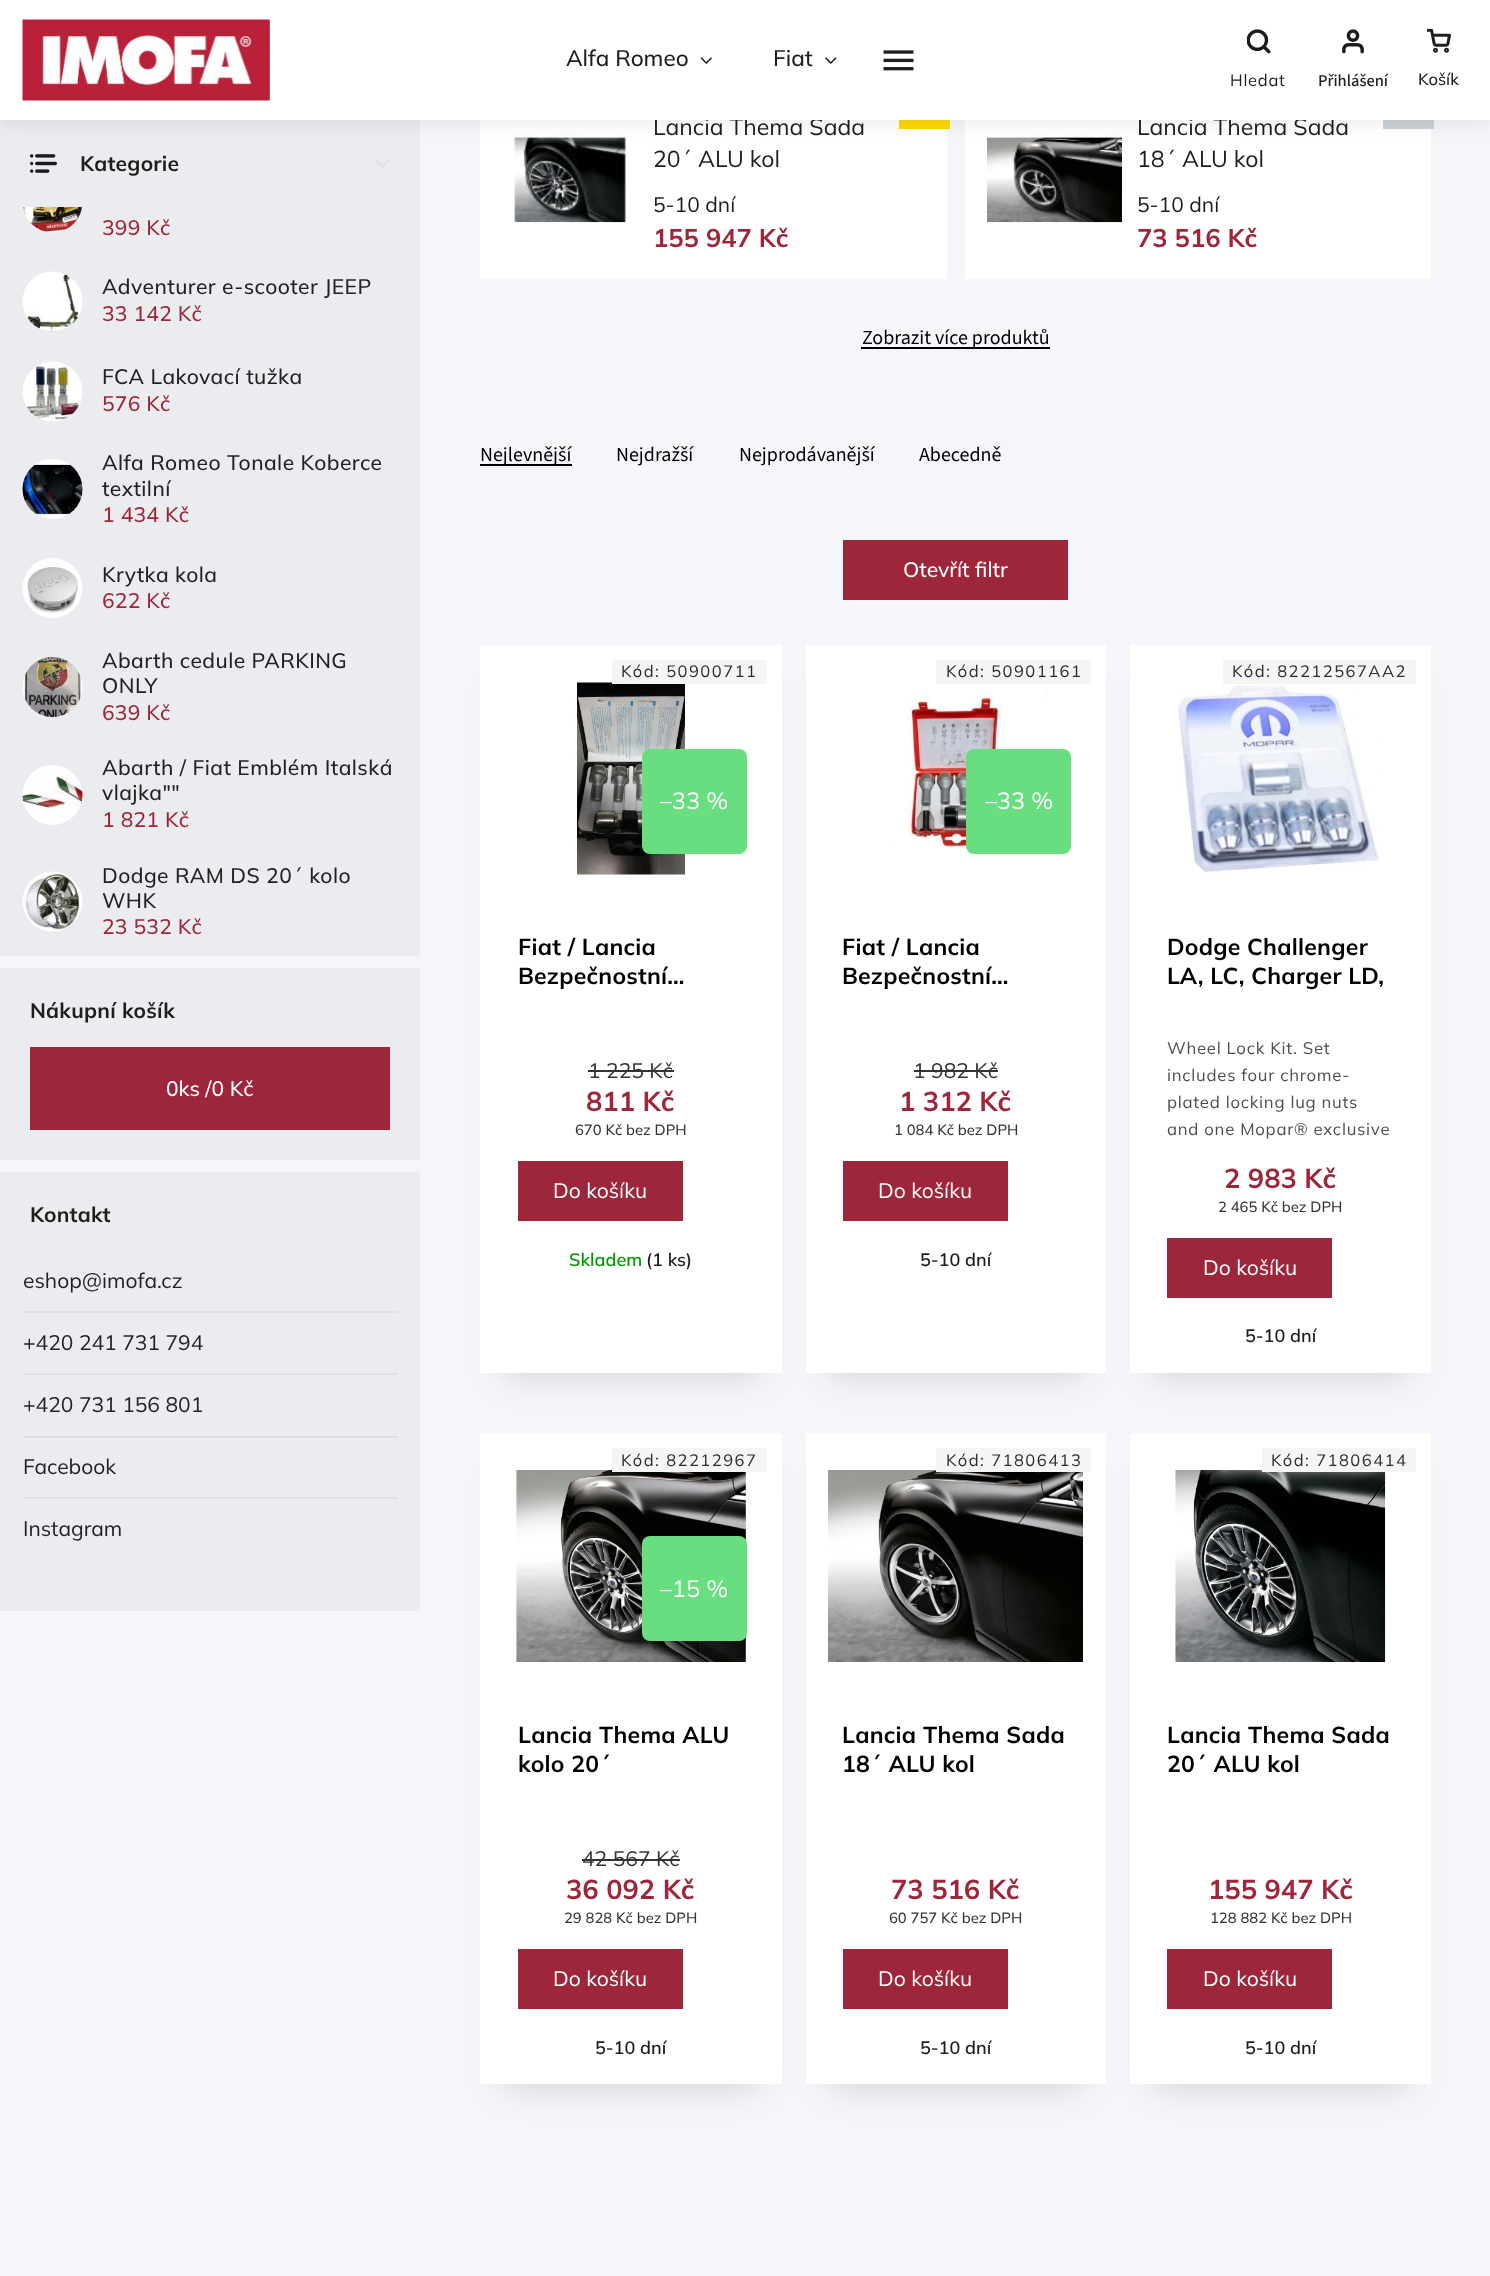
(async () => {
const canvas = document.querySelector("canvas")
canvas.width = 1490
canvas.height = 2276
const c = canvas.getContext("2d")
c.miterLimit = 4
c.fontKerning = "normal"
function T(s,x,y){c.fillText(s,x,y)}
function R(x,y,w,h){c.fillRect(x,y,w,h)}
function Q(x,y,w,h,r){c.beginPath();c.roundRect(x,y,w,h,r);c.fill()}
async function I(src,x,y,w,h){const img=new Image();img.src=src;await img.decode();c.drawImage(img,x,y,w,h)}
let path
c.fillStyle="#f5f6fa"
R(0,0,1490,2276)
c.fillStyle="#ebecf0"
R(0,120,420,836)
c.fillStyle="#fff"
R(480,120,467,159)
await I("17.png",513,132,114,91)
c.fillStyle="#ffd800"
R(899,120,51,9)
c.fillStyle="#fff"
R(965,120,466,159)
await I("18.png",987,132,135,91)
c.fillStyle="#ccd2d6"
R(1383,120,51,9)
c.fillStyle="#0000001a"
c.filter="blur(11px)"
c.beginPath()
c.rect(0,0,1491,120)
c.fill()
c.filter="none"
c.font="23px Mulish"
c.fillStyle="#1e1e1c"
T("Lancia Thema Sada",653,135)
T("Lancia Thema Sada",1137,135)
c.fillStyle="#fff"
R(0,0,1490,120)
c.font="500 22.5px Mulish"
c.fillStyle="#1e1e1c"
T("Alfa Romeo",566,66)
await I("1.png",700,57,12,7)
T("Fiat",773,66)
await I("2.png",825,57,12,7)
await I("3.png",883,50,31,21)
await I("4.png",22,19,248,82)
await I("5.png",1247,29,24,25)
c.letterSpacing="0.75px"
c.font="16.5px Mulish"
T("Hledat",1230,86)
await I("6.png",1342,29,22,25)
c.letterSpacing="0px"
c.font="500 16.5px 'Source Sans 3'"
T("Přihlášení",1318,86)
await I("7.png",1427,29,24,24)
c.font="500 16.5px Mulish"
T("Košík",1418,85)
await I("8.png",30,154,27,19)
c.letterSpacing="0.25px"
c.font="bold 21px Mulish"
T("Kategorie",80,171)
path = new Path2D("M376.5 160.5l6 6l6-6")
c.strokeStyle="#e1e1e3"
c.lineWidth=3
c.lineCap="round"
c.lineJoin="round"
c.stroke(path)
await I("9.png",22,207,60,26)
c.font="500 21px Mulish"
c.fillStyle="#9e263a"
T("399 Kč",102,235)
await I("10.png",22,271,61,61)
c.letterSpacing="0.45px"
c.fillStyle="#222"
T("Adventurer e-scooter JEEP",102,294)
c.letterSpacing="0.25px"
c.fillStyle="#9e263a"
T("33 142 Kč",102,321)
await I("11.png",22,361,61,61)
c.letterSpacing="0.45px"
c.fillStyle="#222"
T("FCA Lakovací tužka",102,384)
c.letterSpacing="0.25px"
c.fillStyle="#9e263a"
T("576 Kč",102,411)
await I("12.png",22,459,61,60)
c.letterSpacing="0.45px"
c.fillStyle="#222"
T("Alfa Romeo Tonale Koberce",102,470)
T("textilní",102,496)
c.letterSpacing="0.25px"
c.fillStyle="#9e263a"
T("1 434 Kč",102,522)
await I("13.png",22,558,61,60)
c.letterSpacing="0.45px"
c.fillStyle="#222"
T("Krytka kola",102,582)
c.letterSpacing="0.25px"
c.fillStyle="#9e263a"
T("622 Kč",102,608)
await I("14.png",22,657,61,60)
c.letterSpacing="0.45px"
c.fillStyle="#222"
T("Abarth cedule PARKING",102,668)
T("ONLY",102,693)
c.letterSpacing="0.25px"
c.fillStyle="#9e263a"
T("639 Kč",102,720)
await I("15.png",22,765,61,60)
c.letterSpacing="0.45px"
c.fillStyle="#222"
T("Abarth / Fiat Emblém Italská",102,775)
T("vlajka\"\"",102,800)
c.letterSpacing="0.25px"
c.fillStyle="#9e263a"
T("1 821 Kč",102,827)
await I("16.png",22,871,61,61)
c.letterSpacing="0.45px"
c.fillStyle="#222"
T("Dodge RAM DS 20´ kolo",102,883)
T("WHK",102,908)
c.letterSpacing="0.25px"
c.fillStyle="#9e263a"
T("23 532 Kč",102,934)
c.fillStyle="#ebecf0"
R(0,968,420,192)
c.font="bold 21px Mulish"
c.fillStyle="#1e1e1c"
T("Nákupní košík",30,1018)
c.fillStyle="#9e263a"
R(30,1047,360,83)
c.letterSpacing="0px"
c.font="500 21px Mulish"
c.fillStyle="#fff"
T("0ks /0 Kč",166,1096)
c.fillStyle="#ebecf0"
R(0,1172,420,439)
c.letterSpacing="0.25px"
c.font="bold 21px Mulish"
c.fillStyle="#1e1e1c"
T("Kontakt",30,1222)
c.fillStyle="#dfdfdf"
R(23,1311,375,2)
c.letterSpacing="0px"
c.font="21px Mulish"
c.fillStyle="#222"
T("eshop@imofa.cz",23,1288)
c.fillStyle="#dfdfdf"
R(23,1373,375,2)
c.fillStyle="#222"
T("+420 241 731 794",23,1350)
c.fillStyle="#dfdfdf"
R(23,1436,375,2)
c.fillStyle="#222"
T("+420 731 156 801",23,1412)
c.fillStyle="#dfdfdf"
R(23,1497,375,2)
c.fillStyle="#222"
T("Facebook",23,1474)
T("Instagram",23,1536)
c.font="23px Mulish"
c.fillStyle="#1e1e1c"
T("20´ ALU kol",653,167)
c.font="21px Mulish"
T("5-10 dní",653,212)
c.font="bold 25.5px Mulish"
c.fillStyle="#9e263a"
T("155 947 Kč",653,247)
c.font="23px Mulish"
c.fillStyle="#1e1e1c"
T("18´ ALU kol",1137,167)
c.font="21px Mulish"
T("5-10 dní",1137,212)
c.font="bold 25.5px Mulish"
c.fillStyle="#9e263a"
T("73 516 Kč",1137,247)
c.fillStyle="#000"
R(861,347,189,2)
c.font="20px 'Source Sans 3'"
T("Zobrazit více produktů",862,344)
R(480,464,92,2)
T("Nejlevnější",480,461)
T("Nejdražší",616,461)
T("Nejprodávanější",739,461)
T("Abecedně",919,461)
c.fillStyle="#9e263a"
R(843,540,225,60)
c.font="500 21px Mulish"
c.fillStyle="#fff"
T("Otevřít filtr",903,577)
c.fillStyle="#0000002b"
c.filter="blur(18px)"
c.beginPath()
c.rect(504,693,254,680)
c.fill()
c.filter="none"
c.fillStyle="#fff"
R(480,645,302,728)
await I("19.png",575,682,112,193)
c.fillStyle="#f5f5f4"
R(612,660,155,24)
c.letterSpacing="1.5px"
c.font="16.5px Mulish"
c.fillStyle="#2c2c2c"
T("Kód: 50900711",621,677)
c.fillStyle="#68de81"
Q(642,749,105,105,8)
c.letterSpacing="0px"
c.font="23.5px Mulish"
c.fillStyle="#fff"
T("–33 %",660,809)
c.letterSpacing="0.25px"
c.font="bold 23px Mulish"
c.fillStyle="#000"
T("Fiat / Lancia",518,955)
T("Bezpečnostní…",518,984)
c.letterSpacing="0px"
c.font="600 18px Mulish"
c.fillStyle="#009901"
T("Skladem",569,1266)
c.fillStyle="#1e1e1c"
T("(1 ks)",646,1266)
c.font="21px Mulish"
c.fillStyle="#333"
T("1 225 Kč",588,1078)
R(588,1070,86,2)
c.font="bold 27.25px Mulish"
c.fillStyle="#9e263a"
T("811 Kč",586,1111)
c.font="500 14.75px Mulish"
c.fillStyle="#333"
T("670 Kč bez DPH",575,1135)
c.fillStyle="#9e263a"
R(518,1161,165,60)
c.font="21px Mulish"
c.fillStyle="#fff"
T("Do košíku",553,1198)
c.fillStyle="#0000002b"
c.filter="blur(18px)"
c.beginPath()
c.rect(830,693,252,680)
c.fill()
c.filter="none"
c.fillStyle="#fff"
R(806,645,300,728)
c.fillStyle="#f5f5f4"
R(936,660,155,24)
c.letterSpacing="1.5px"
c.font="16.5px Mulish"
c.fillStyle="#2c2c2c"
T("Kód: 50901161",946,677)
await I("20.png",891,692,157,156)
c.fillStyle="#68de81"
Q(966,749,105,105,8)
c.letterSpacing="0px"
c.font="23.5px Mulish"
c.fillStyle="#fff"
T("–33 %",985,809)
c.letterSpacing="0.25px"
c.font="bold 23px Mulish"
c.fillStyle="#000"
T("Fiat / Lancia",842,955)
T("Bezpečnostní…",842,984)
c.letterSpacing="0px"
c.font="600 18px Mulish"
c.fillStyle="#1e1e1c"
T("5-10 dní",920,1266)
c.font="21px Mulish"
c.fillStyle="#333"
T("1 982 Kč",913,1078)
R(914,1070,84,2)
c.font="bold 27.25px Mulish"
c.fillStyle="#9e263a"
T("1 312 Kč",899,1111)
c.font="500 14.75px Mulish"
c.fillStyle="#333"
T("1 084 Kč bez DPH",894,1135)
c.fillStyle="#9e263a"
R(843,1161,165,60)
c.font="21px Mulish"
c.fillStyle="#fff"
T("Do košíku",878,1198)
c.fillStyle="#0000002b"
c.filter="blur(18px)"
c.beginPath()
c.rect(1154,693,253,680)
c.fill()
c.filter="none"
c.fillStyle="#fff"
R(1130,645,301,728)
c.fillStyle="#f5f5f4"
R(1223,660,193,24)
c.letterSpacing="1.5px"
c.font="16.5px Mulish"
c.fillStyle="#2c2c2c"
T("Kód: 82212567AA2",1232,677)
await I("21.png",1176,685,204,189)
c.letterSpacing="0.25px"
c.font="bold 23px Mulish"
c.fillStyle="#000"
T("Dodge Challenger",1167,955)
T("LA, LC, Charger LD,",1167,984)
c.letterSpacing="0px"
c.font="600 18px Mulish"
c.fillStyle="#1e1e1c"
T("5-10 dní",1245,1342)
c.letterSpacing="0.75px"
c.font="16.75px Mulish"
c.fillStyle="#4d4d4d"
T("Wheel Lock Kit. Set",1167,1054)
T("includes four chrome-",1167,1081)
T("plated locking lug nuts",1167,1108)
T("and one Mopar® exclusive",1167,1135)
c.letterSpacing="0px"
c.font="bold 27.25px Mulish"
c.fillStyle="#9e263a"
T("2 983 Kč",1224,1188)
c.font="500 14.75px Mulish"
c.fillStyle="#333"
T("2 465 Kč bez DPH",1218,1212)
c.fillStyle="#9e263a"
R(1167,1238,165,60)
c.font="21px Mulish"
c.fillStyle="#fff"
T("Do košíku",1203,1275)
c.fillStyle="#0000002b"
c.filter="blur(18px)"
c.beginPath()
c.rect(504,1481,254,603)
c.fill()
c.filter="none"
c.fillStyle="#fff"
R(480,1433,302,651)
await I("22.png",515,1470,235,192)
c.fillStyle="#f5f5f4"
R(612,1448,155,24)
c.letterSpacing="1.5px"
c.font="16.5px Mulish"
c.fillStyle="#2c2c2c"
T("Kód: 82212967",621,1466)
c.fillStyle="#68de81"
Q(642,1536,105,105,8)
c.letterSpacing="0px"
c.font="23.5px Mulish"
c.fillStyle="#fff"
T("–15 %",660,1597)
c.letterSpacing="0.25px"
c.font="bold 23px Mulish"
c.fillStyle="#000"
T("Lancia Thema ALU",518,1743)
T("kolo 20´",518,1772)
c.letterSpacing="0px"
c.font="600 18px Mulish"
c.fillStyle="#1e1e1c"
T("5-10 dní",595,2054)
c.font="21px Mulish"
c.fillStyle="#333"
T("42 567 Kč",582,1866)
R(582,1859,98,2)
c.font="bold 27.25px Mulish"
c.fillStyle="#9e263a"
T("36 092 Kč",566,1899)
c.font="500 14.75px Mulish"
c.fillStyle="#333"
T("29 828 Kč bez DPH",564,1923)
c.fillStyle="#9e263a"
R(518,1949,165,60)
c.font="21px Mulish"
c.fillStyle="#fff"
T("Do košíku",553,1986)
c.fillStyle="#0000002b"
c.filter="blur(18px)"
c.beginPath()
c.rect(830,1481,252,603)
c.fill()
c.filter="none"
c.fillStyle="#fff"
R(806,1433,300,651)
await I("23.png",828,1470,255,192)
c.fillStyle="#f5f5f4"
R(936,1448,155,24)
c.letterSpacing="1.5px"
c.font="16.5px Mulish"
c.fillStyle="#2c2c2c"
T("Kód: 71806413",946,1466)
c.letterSpacing="0.25px"
c.font="bold 23px Mulish"
c.fillStyle="#000"
T("Lancia Thema Sada",842,1743)
T("18´ ALU kol",842,1772)
c.letterSpacing="0px"
c.font="600 18px Mulish"
c.fillStyle="#1e1e1c"
T("5-10 dní",920,2054)
c.font="bold 27.25px Mulish"
c.fillStyle="#9e263a"
T("73 516 Kč",891,1899)
c.font="500 14.75px Mulish"
c.fillStyle="#333"
T("60 757 Kč bez DPH",889,1923)
c.fillStyle="#9e263a"
R(843,1949,165,60)
c.font="21px Mulish"
c.fillStyle="#fff"
T("Do košíku",878,1986)
c.fillStyle="#0000002b"
c.filter="blur(18px)"
c.beginPath()
c.rect(1154,1481,253,603)
c.fill()
c.filter="none"
c.fillStyle="#fff"
R(1130,1433,301,651)
await I("24.png",1175,1470,212,192)
c.fillStyle="#f5f5f4"
R(1262,1448,154,24)
c.letterSpacing="1.5px"
c.font="16.5px Mulish"
c.fillStyle="#2c2c2c"
T("Kód: 71806414",1271,1466)
c.letterSpacing="0.25px"
c.font="bold 23px Mulish"
c.fillStyle="#000"
T("Lancia Thema Sada",1167,1743)
T("20´ ALU kol",1167,1772)
c.letterSpacing="0px"
c.font="600 18px Mulish"
c.fillStyle="#1e1e1c"
T("5-10 dní",1245,2054)
c.font="bold 27.25px Mulish"
c.fillStyle="#9e263a"
T("155 947 Kč",1208,1899)
c.font="500 14.75px Mulish"
c.fillStyle="#333"
T("128 882 Kč bez DPH",1210,1923)
c.fillStyle="#9e263a"
R(1167,1949,165,60)
c.font="21px Mulish"
c.fillStyle="#fff"
T("Do košíku",1203,1986)
})()
